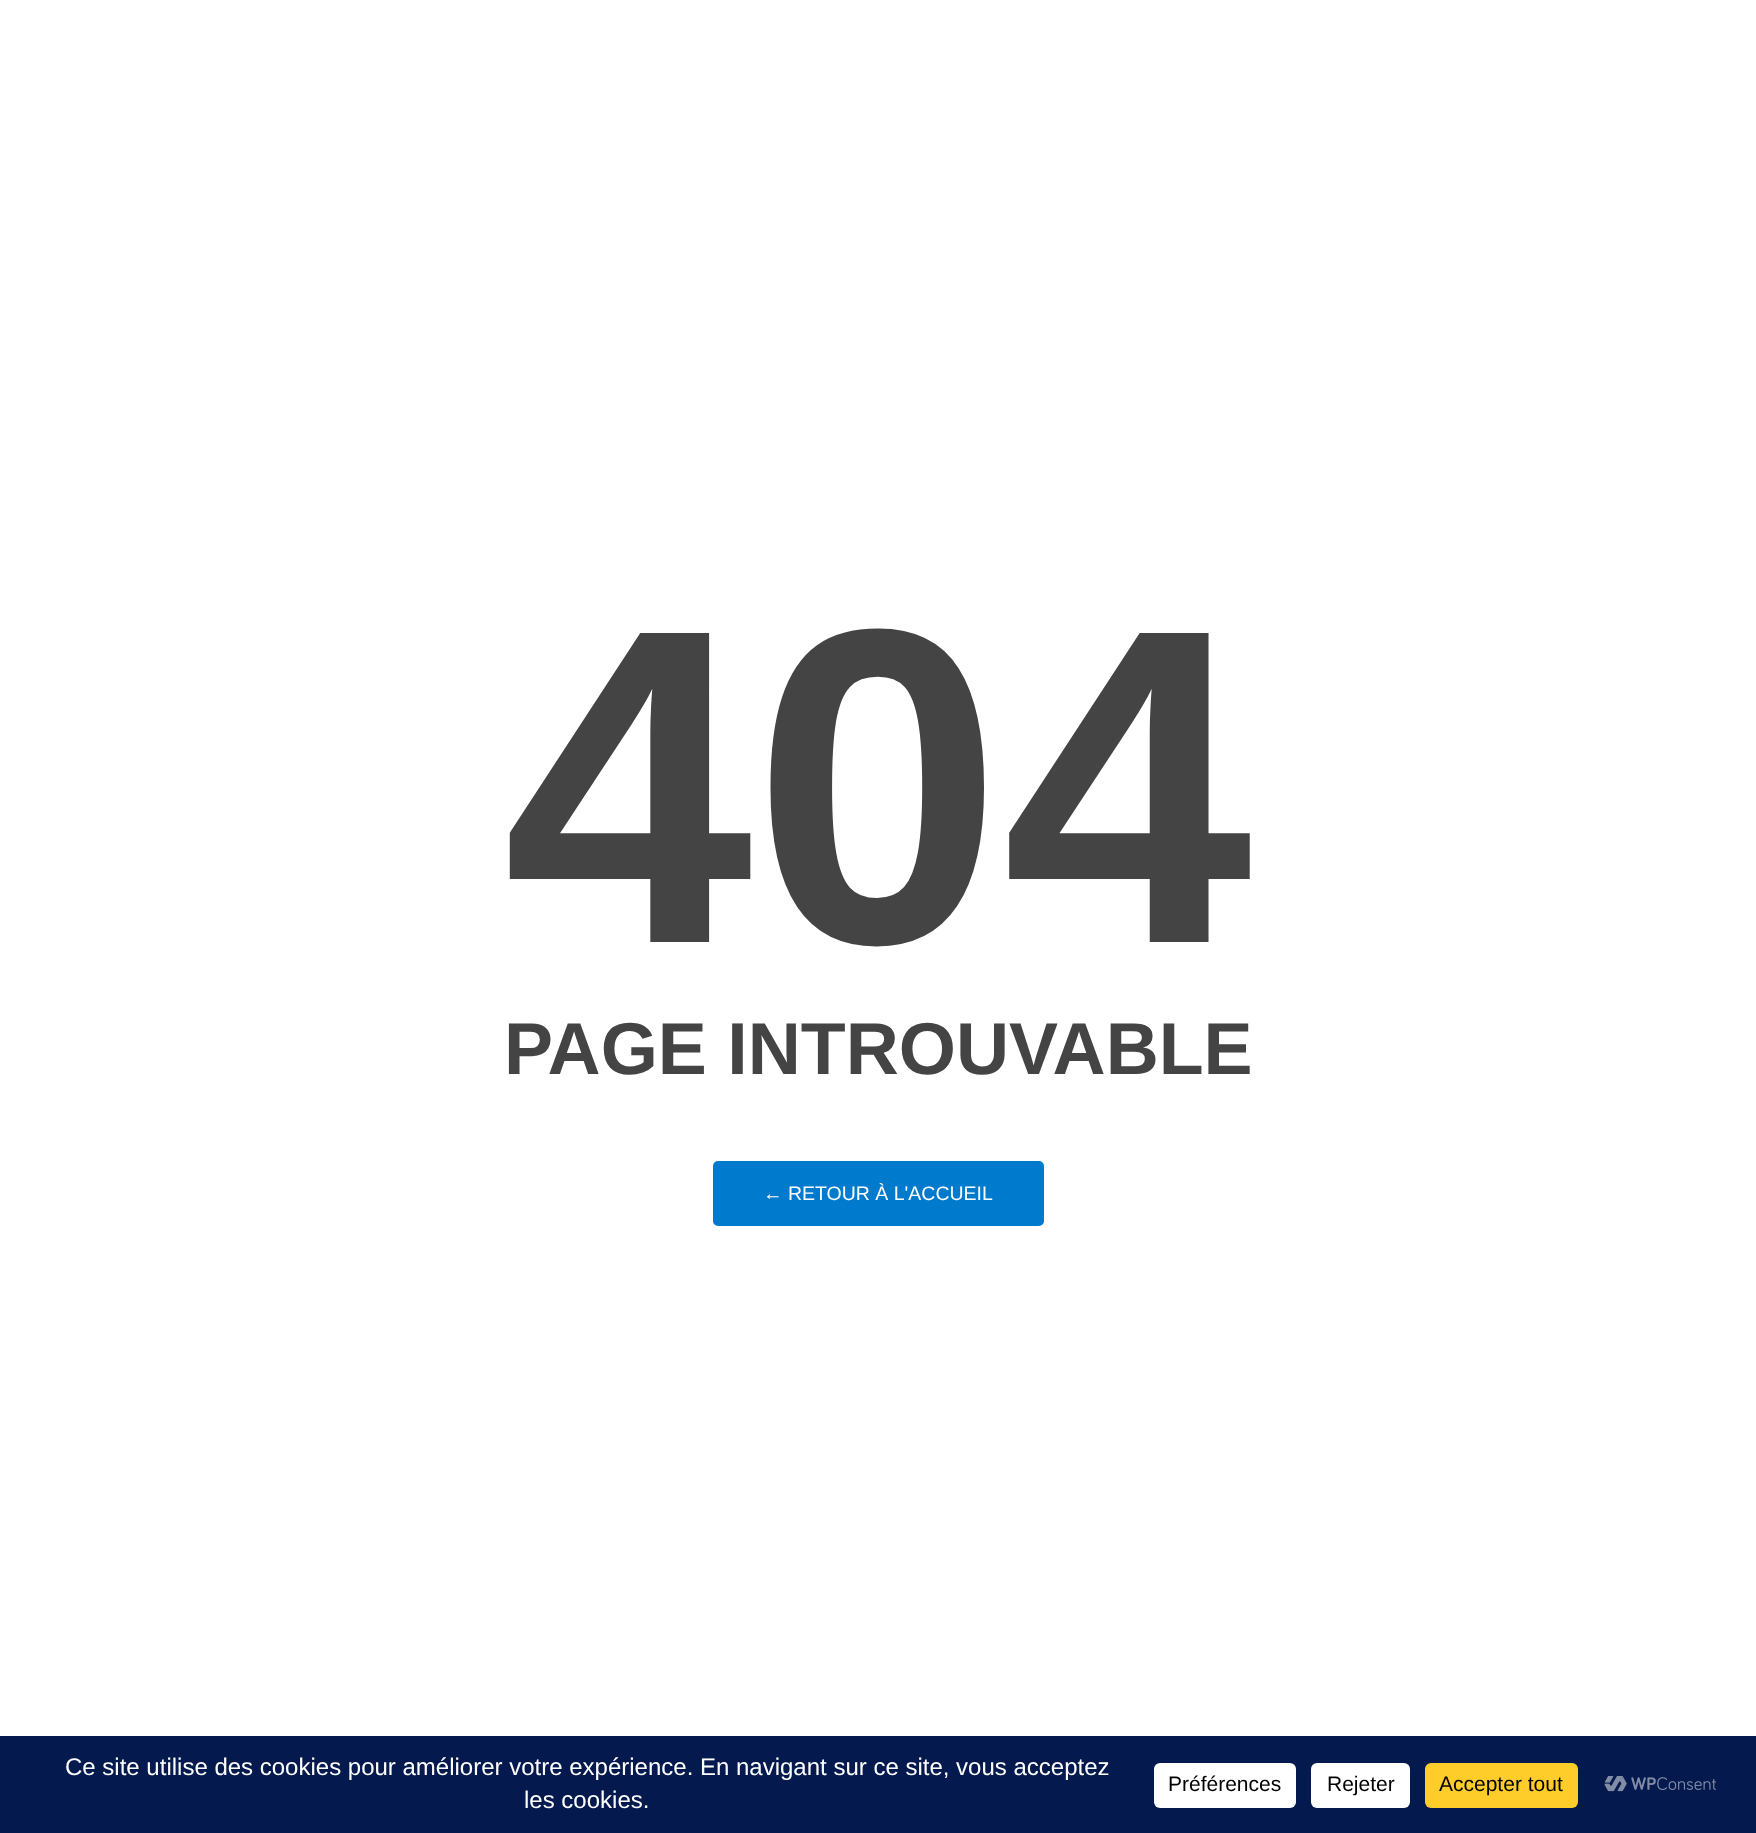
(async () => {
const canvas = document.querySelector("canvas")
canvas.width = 1756
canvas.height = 1833
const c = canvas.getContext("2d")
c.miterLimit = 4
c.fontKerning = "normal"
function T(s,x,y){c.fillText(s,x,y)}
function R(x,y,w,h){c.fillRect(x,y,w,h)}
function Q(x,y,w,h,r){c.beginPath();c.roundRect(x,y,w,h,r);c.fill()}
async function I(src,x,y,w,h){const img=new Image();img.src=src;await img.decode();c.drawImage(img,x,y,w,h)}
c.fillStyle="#fff"
R(0,0,1756,1833)
c.font="bold 449px Liberation Sans"
c.fillStyle="#444"
T("404",503,942)
c.font="bold 73.5px Liberation Sans"
T("PAGE INTROUVABLE",504,1074)
c.fillStyle="#007acc"
c.beginPath()
c.roundRect(714,1162,329,63,4)
c.fill()
c.strokeStyle="#007acc"
c.lineWidth=2
c.stroke()
c.font="19.5px Liberation Sans"
c.fillStyle="#fff"
T("← RETOUR À L'ACCUEIL",763,1200)
c.fillStyle="#04194e"
R(0,1736,1756,97)
c.font="24px Liberation Sans"
c.fillStyle="#fff"
T("Ce site utilise des cookies pour améliorer votre expérience. En navigant sur ce site, vous acceptez",65,1775)
T("les cookies.",524,1808)
Q(1154,1763,142,45,6)
c.font="21px Liberation Sans"
c.fillStyle="#000"
T("Préférences",1168,1791)
c.fillStyle="#fff"
Q(1311,1763,99,45,6)
c.fillStyle="#000"
T("Rejeter",1327,1791)
c.fillStyle="#ffcd2a"
Q(1425,1763,153,45,6)
c.fillStyle="#000"
T("Accepter tout",1439,1791)
await I("1.png",1604,1776,112,16)
})()
